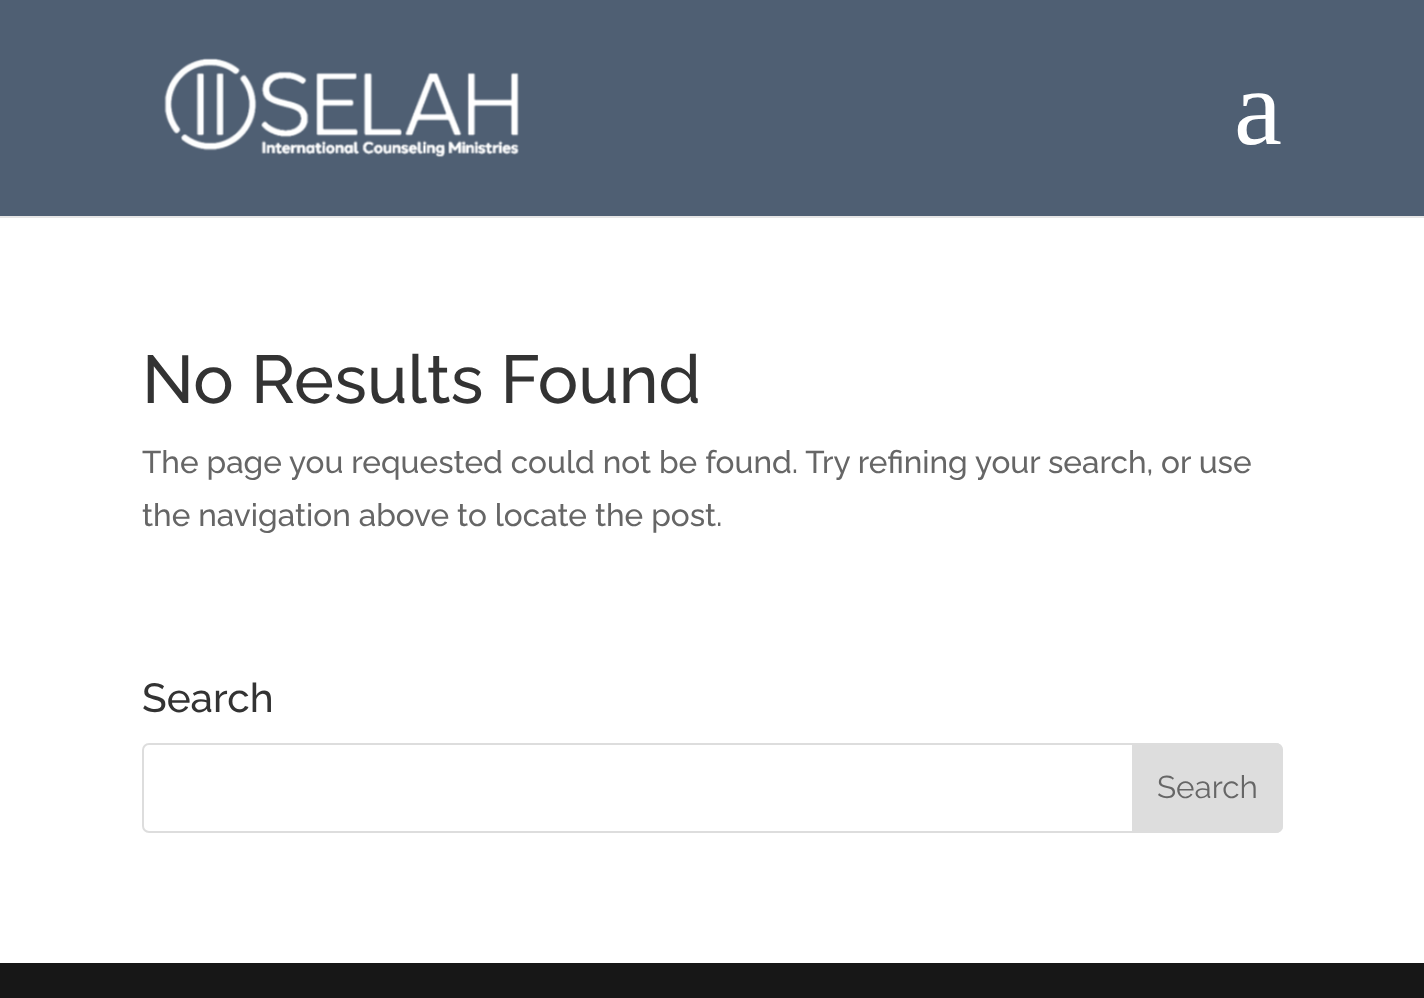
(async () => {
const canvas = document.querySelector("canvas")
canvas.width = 1424
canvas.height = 998
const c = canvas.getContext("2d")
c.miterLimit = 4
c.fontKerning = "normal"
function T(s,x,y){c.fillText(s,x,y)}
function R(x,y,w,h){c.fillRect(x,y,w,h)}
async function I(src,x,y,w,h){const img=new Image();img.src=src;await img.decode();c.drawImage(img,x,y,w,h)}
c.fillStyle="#fff"
R(0,0,1424,998)
c.fillStyle="#e6e6e6"
R(0,216,1424,2)
c.fillStyle="#4f5f73"
R(0,0,1424,216)
await I("1.png",164,58,355,100)
c.font="108px Liberation Serif"
c.fillStyle="#fff"
T("a",1234,144)
c.font="100 67.5px Raleway"
c.fillStyle="#333"
T("No Results Found",142,403)
c.font="100 31.5px Raleway"
c.fillStyle="#666"
T("The page you requested could not be found. Try refining your search, or use",142,473)
T("the navigation above to locate the post.",142,526)
c.font="100 40.5px Raleway"
c.fillStyle="#333"
T("Search",142,712)
c.beginPath()
c.roundRect(143,744,1139,88,6)
c.strokeStyle="#ddd"
c.lineWidth=2
c.stroke()
c.fillStyle="#ddd"
c.beginPath()
c.roundRect(1133,744,149,88,[0,6,6,0])
c.fill()
c.stroke()
c.font="100 31.5px 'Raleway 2'"
c.fillStyle="#666"
T("Search",1157,798)
c.fillStyle="#171717"
R(0,963,1424,35)
})()
